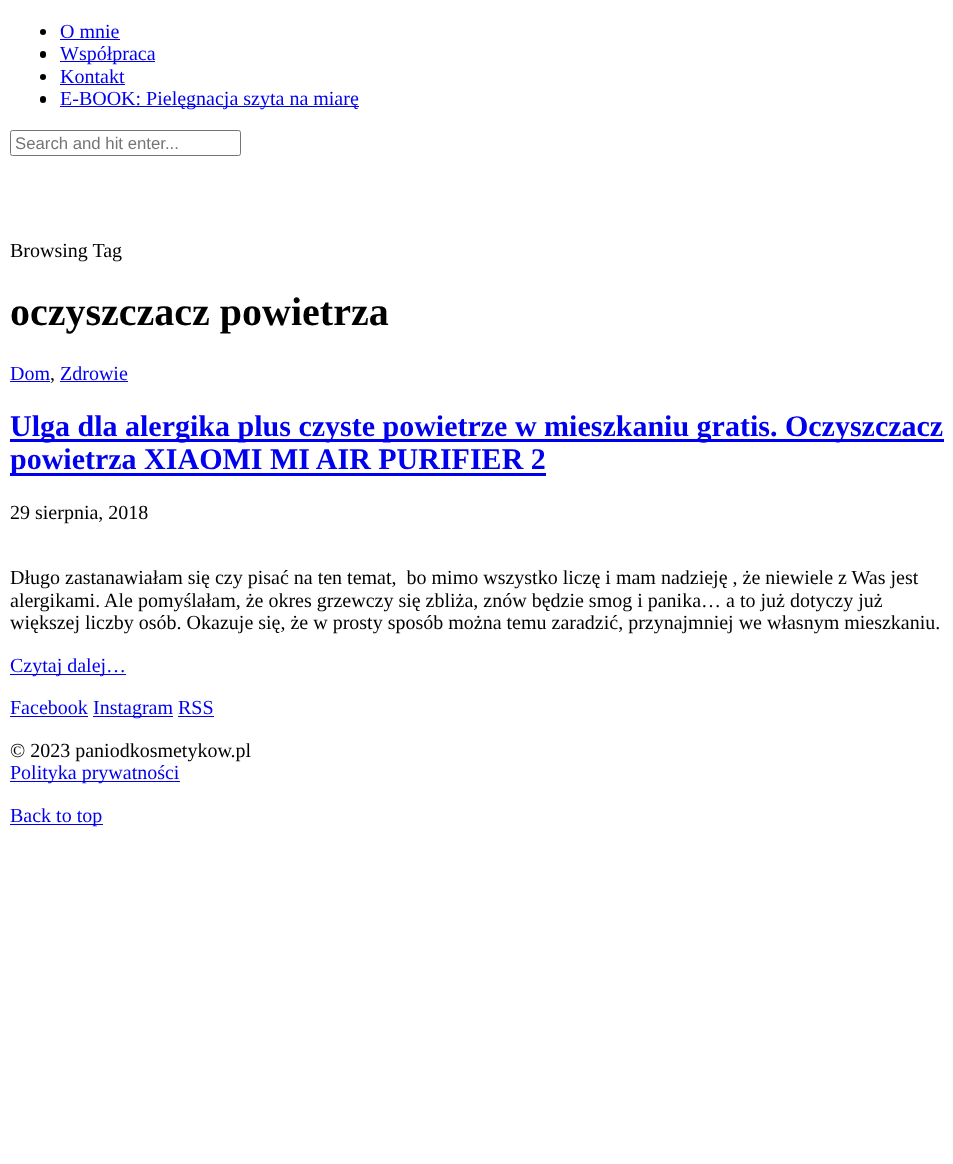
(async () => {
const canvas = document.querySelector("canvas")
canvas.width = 953
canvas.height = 1164
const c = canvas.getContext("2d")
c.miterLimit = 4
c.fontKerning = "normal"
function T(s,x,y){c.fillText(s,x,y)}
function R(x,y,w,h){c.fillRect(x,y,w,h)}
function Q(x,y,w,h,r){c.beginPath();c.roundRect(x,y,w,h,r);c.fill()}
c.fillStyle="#fff"
R(0,0,953,1164)
c.fillStyle="#000"
c.beginPath()
c.arc(43,32,3,0,7)
c.fill()
c.font="20px Liberation Serif"
c.fillStyle="#00e"
T("O mnie",60,38)
R(60,39,60,1)
c.fillStyle="#000"
Q(40,51,6,7,3)
c.fillStyle="#00e"
R(60,61,95,1)
T("Współpraca",60,60)
c.fillStyle="#000"
c.beginPath()
c.arc(43,77,3,0,7)
c.fill()
c.fillStyle="#00e"
T("Kontakt",60,83)
R(60,84,65,1)
c.fillStyle="#000"
Q(40,96,6,7,3)
c.fillStyle="#00e"
R(60,106,299,1)
T("E-BOOK: Pielęgnacja szyta na miarę",60,105)
c.beginPath()
c.roundRect(10.5,130.5,230,25,2)
c.strokeStyle="#767676"
c.stroke()
c.font="16.75px Liberation Sans"
c.fillStyle="#757575"
T("Search and hit enter...",15,149)
c.font="20px Liberation Serif"
c.fillStyle="#000"
T("Browsing Tag",10,257)
c.font="bold 40px Liberation Serif"
T("oczyszczacz powietrza",10,325)
c.font="20px Liberation Serif"
c.fillStyle="#00e"
T("Dom",10,380)
c.fillStyle="#000"
T(",",50,380)
c.fillStyle="#00e"
R(10,381,40,1)
R(60,381,68,1)
T("Zdrowie",60,380)
R(10,439,934,3)
c.font="bold 30px Liberation Serif"
T("Ulga dla alergika plus czyste powietrze w mieszkaniu gratis. Oczyszczacz",10,436)
R(10,473,536,3)
T("powietrza XIAOMI MI AIR PURIFIER 2",10,469)
c.font="20px Liberation Serif"
c.fillStyle="#000"
T("29 sierpnia, 2018",10,519)
T("Długo zastanawiałam się czy pisać na ten temat,  bo mimo wszystko liczę i mam nadzieję , że niewiele z Was jest",10,584)
T("alergikami. Ale pomyślałam, że okres grzewczy się zbliża, znów będzie smog i panika… a to już dotyczy już",10,607)
T("większej liczby osób. Okazuje się, że w prosty sposób można temu zaradzić, przynajmniej we własnym mieszkaniu.",10,629)
c.fillStyle="#00e"
R(10,674,116,1)
T("Czytaj dalej…",10,672)
T("Facebook",10,714)
R(10,716,78,1)
R(93,716,80,1)
T("Instagram RSS",93,714)
R(178,716,36,1)
c.fillStyle="#000"
T("© 2023 paniodkosmetykow.pl",10,757)
c.fillStyle="#00e"
R(10,781,170,1)
T("Polityka prywatności",10,779)
R(10,824,93,1)
T("Back to top",10,822)
})()
